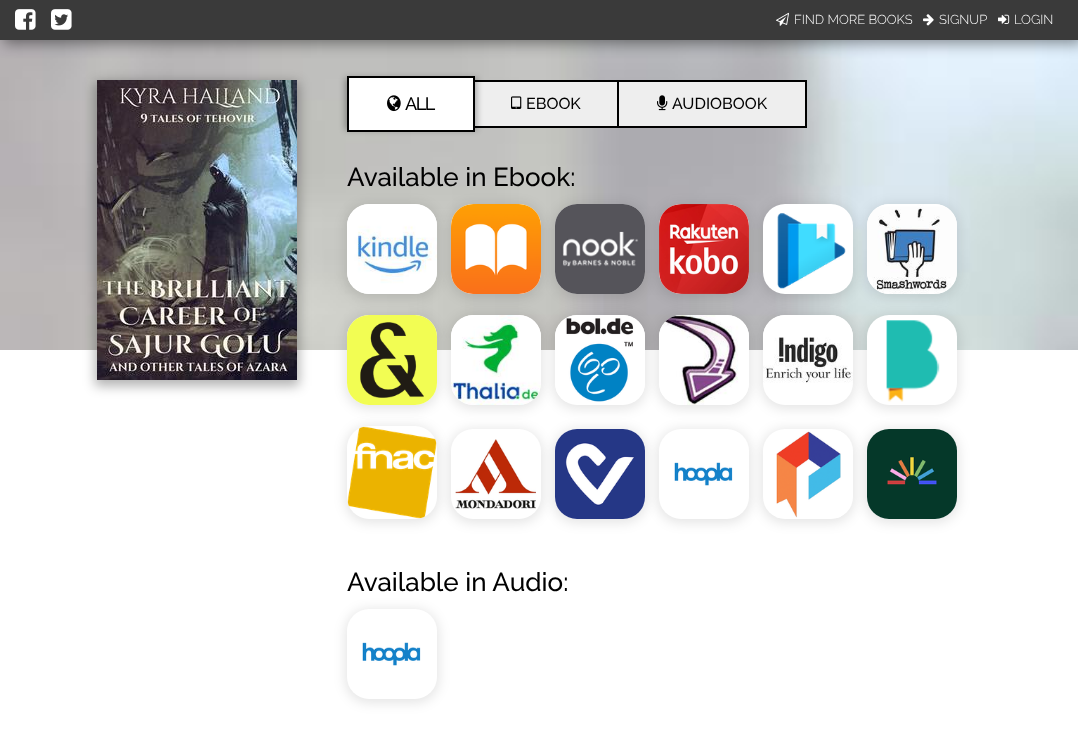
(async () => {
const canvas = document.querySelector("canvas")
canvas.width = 1078
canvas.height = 729
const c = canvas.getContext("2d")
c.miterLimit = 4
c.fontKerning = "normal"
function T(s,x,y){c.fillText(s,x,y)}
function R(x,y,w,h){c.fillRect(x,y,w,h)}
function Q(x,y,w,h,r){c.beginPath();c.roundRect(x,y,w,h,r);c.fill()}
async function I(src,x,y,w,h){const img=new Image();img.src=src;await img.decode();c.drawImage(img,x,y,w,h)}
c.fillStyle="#fff"
R(0,0,1078,729)
await I("1.png",0,40,1078,310)
c.fillStyle="#00000066"
c.filter="blur(7px)"
c.beginPath()
c.rect(4,4,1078,40)
c.fill()
c.filter="none"
c.fillStyle="#3a3a3a"
R(0,0,1078,40)
await I("2.png",15,9,21,21)
await I("3.png",51,9,21,21)
await I("4.png",776,12,13,14)
c.font="300 13px Raleway"
c.fillStyle="#fff"
T("FIND MORE BOOKS",794,24)
await I("5.png",923,14,11,12)
T("SIGNUP",939,24)
await I("6.png",998,14,12,10)
T("LOGIN",1014,24)
c.fillStyle="#0000004d"
c.filter="blur(6px)"
c.beginPath()
c.rect(95,82,204,304)
c.fill()
c.filter="none"
await I("7.png",97,80,200,300)
c.fillStyle="#eee"
R(475,82,142,44)
c.strokeStyle="#000"
c.lineWidth=2
c.strokeRect(472,81,148,46)
c.fillStyle="#0000004d"
c.filter="blur(3px)"
c.beginPath()
c.rect(345,78,132,52)
c.fill()
c.filter="none"
c.fillStyle="#fff"
c.beginPath()
c.rect(348,77,126,54)
c.fill()
c.stroke()
await I("8.png",387,95,14,17)
c.letterSpacing="-1.5px"
c.font="500 18px Raleway"
c.fillStyle="#000"
T("ALL",405,110)
await I("9.png",511,96,11,13)
c.letterSpacing="0px"
c.font="500 16px Raleway"
T("EBOOK",526,109)
c.fillStyle="#eee"
c.beginPath()
c.rect(618,81,188,46)
c.fill()
c.stroke()
await I("10.png",657,95,11,16)
c.fillStyle="#000"
T("AUDIOBOOK",672,109)
c.fillStyle="#0000001a"
c.filter="blur(6px)"
c.beginPath()
c.roundRect(345,204,94,94,24)
c.fill()
c.filter="none"
c.fillStyle="#fff"
Q(347,204,90,90,22)
await I("11.png",347,204,90,90)
c.fillStyle="#0000001a"
c.filter="blur(6px)"
c.beginPath()
c.roundRect(449,204,94,94,24)
c.fill()
c.filter="none"
c.fillStyle="#fff"
Q(451,204,90,90,22)
await I("12.png",451,204,90,90)
c.fillStyle="#0000001a"
c.filter="blur(6px)"
c.beginPath()
c.roundRect(553,204,94,94,24)
c.fill()
c.filter="none"
c.font="500 26px Raleway"
c.fillStyle="#000"
T("Available in Ebook:",347,186)
c.fillStyle="#fff"
Q(555,204,90,90,22)
await I("13.png",555,204,90,90)
c.fillStyle="#0000001a"
c.filter="blur(6px)"
c.beginPath()
c.roundRect(657,204,94,94,24)
c.fill()
c.filter="none"
c.fillStyle="#fff"
Q(659,204,90,90,22)
await I("14.png",659,204,90,90)
c.fillStyle="#0000001a"
c.filter="blur(6px)"
c.beginPath()
c.roundRect(761,204,94,94,24)
c.fill()
c.filter="none"
c.fillStyle="#fff"
Q(763,204,90,90,22)
c.fillStyle="#0000001a"
c.filter="blur(6px)"
c.beginPath()
c.roundRect(865,204,94,94,24)
c.fill()
c.filter="none"
c.fillStyle="#fff"
Q(867,204,90,90,22)
await I("15.png",777,213,69,76)
await I("16.png",867,204,90,90)
c.fillStyle="#0000001a"
c.filter="blur(6px)"
c.beginPath()
c.roundRect(345,315,94,94,24)
c.fill()
c.filter="none"
c.fillStyle="#fff"
Q(347,315,90,90,22)
await I("17.png",347,315,90,90)
c.fillStyle="#0000001a"
c.filter="blur(6px)"
c.beginPath()
c.roundRect(449,315,94,94,24)
c.fill()
c.filter="none"
c.fillStyle="#fff"
Q(451,315,90,90,22)
await I("18.png",451,315,90,90)
c.fillStyle="#0000001a"
c.filter="blur(6px)"
c.beginPath()
c.roundRect(553,315,94,94,24)
c.fill()
c.filter="none"
c.fillStyle="#fff"
Q(555,315,90,90,22)
await I("19.png",555,315,90,87)
c.fillStyle="#0000001a"
c.filter="blur(6px)"
c.beginPath()
c.roundRect(657,315,94,94,24)
c.fill()
c.filter="none"
c.fillStyle="#fff"
Q(659,315,90,90,22)
await I("20.png",659,315,90,90)
c.fillStyle="#0000001a"
c.filter="blur(6px)"
c.beginPath()
c.roundRect(761,315,94,94,24)
c.fill()
c.filter="none"
c.fillStyle="#fff"
Q(763,315,90,90,22)
await I("21.png",763,315,90,68)
c.fillStyle="#0000001a"
c.filter="blur(6px)"
c.beginPath()
c.roundRect(865,315,94,94,24)
c.fill()
c.filter="none"
c.fillStyle="#fff"
Q(867,315,90,90,22)
await I("22.png",886,320,54,82)
c.fillStyle="#0000001a"
c.filter="blur(6px)"
c.beginPath()
c.roundRect(345,426,94,97,24)
c.fill()
c.filter="none"
c.fillStyle="#fff"
Q(347,426,90,93,22)
await I("23.png",347,426,90,93)
c.fillStyle="#0000001a"
c.filter="blur(6px)"
c.beginPath()
c.roundRect(449,429,94,94,24)
c.fill()
c.filter="none"
c.fillStyle="#fff"
Q(451,429,90,90,22)
await I("25.png",455,439,81,70)
c.fillStyle="#0000001a"
c.filter="blur(6px)"
c.beginPath()
c.roundRect(553,429,94,94,24)
c.fill()
c.filter="none"
c.fillStyle="#fff"
Q(555,429,90,90,22)
await I("24.png",555,429,90,90)
c.fillStyle="#0000001a"
c.filter="blur(6px)"
c.beginPath()
c.roundRect(657,429,94,94,24)
c.fill()
c.filter="none"
c.fillStyle="#fff"
Q(659,429,90,90,22)
c.fillStyle="#0000001a"
c.filter="blur(6px)"
c.beginPath()
c.roundRect(761,429,94,94,24)
c.fill()
c.filter="none"
c.fillStyle="#fff"
Q(763,429,90,90,22)
c.fillStyle="#0000001a"
c.filter="blur(6px)"
c.beginPath()
c.roundRect(865,429,94,94,24)
c.fill()
c.filter="none"
c.fillStyle="#fff"
Q(867,429,90,90,22)
await I("26.png",674,462,59,24)
await I("27.png",776,431,65,87)
await I("28.png",867,429,90,90)
c.fillStyle="#0000001a"
c.filter="blur(6px)"
c.beginPath()
c.roundRect(345,609,94,94,24)
c.fill()
c.filter="none"
c.fillStyle="#000"
T("Available in Audio:",347,591)
c.fillStyle="#fff"
Q(347,609,90,90,22)
await I("26.png",362,642,59,24)
})()
